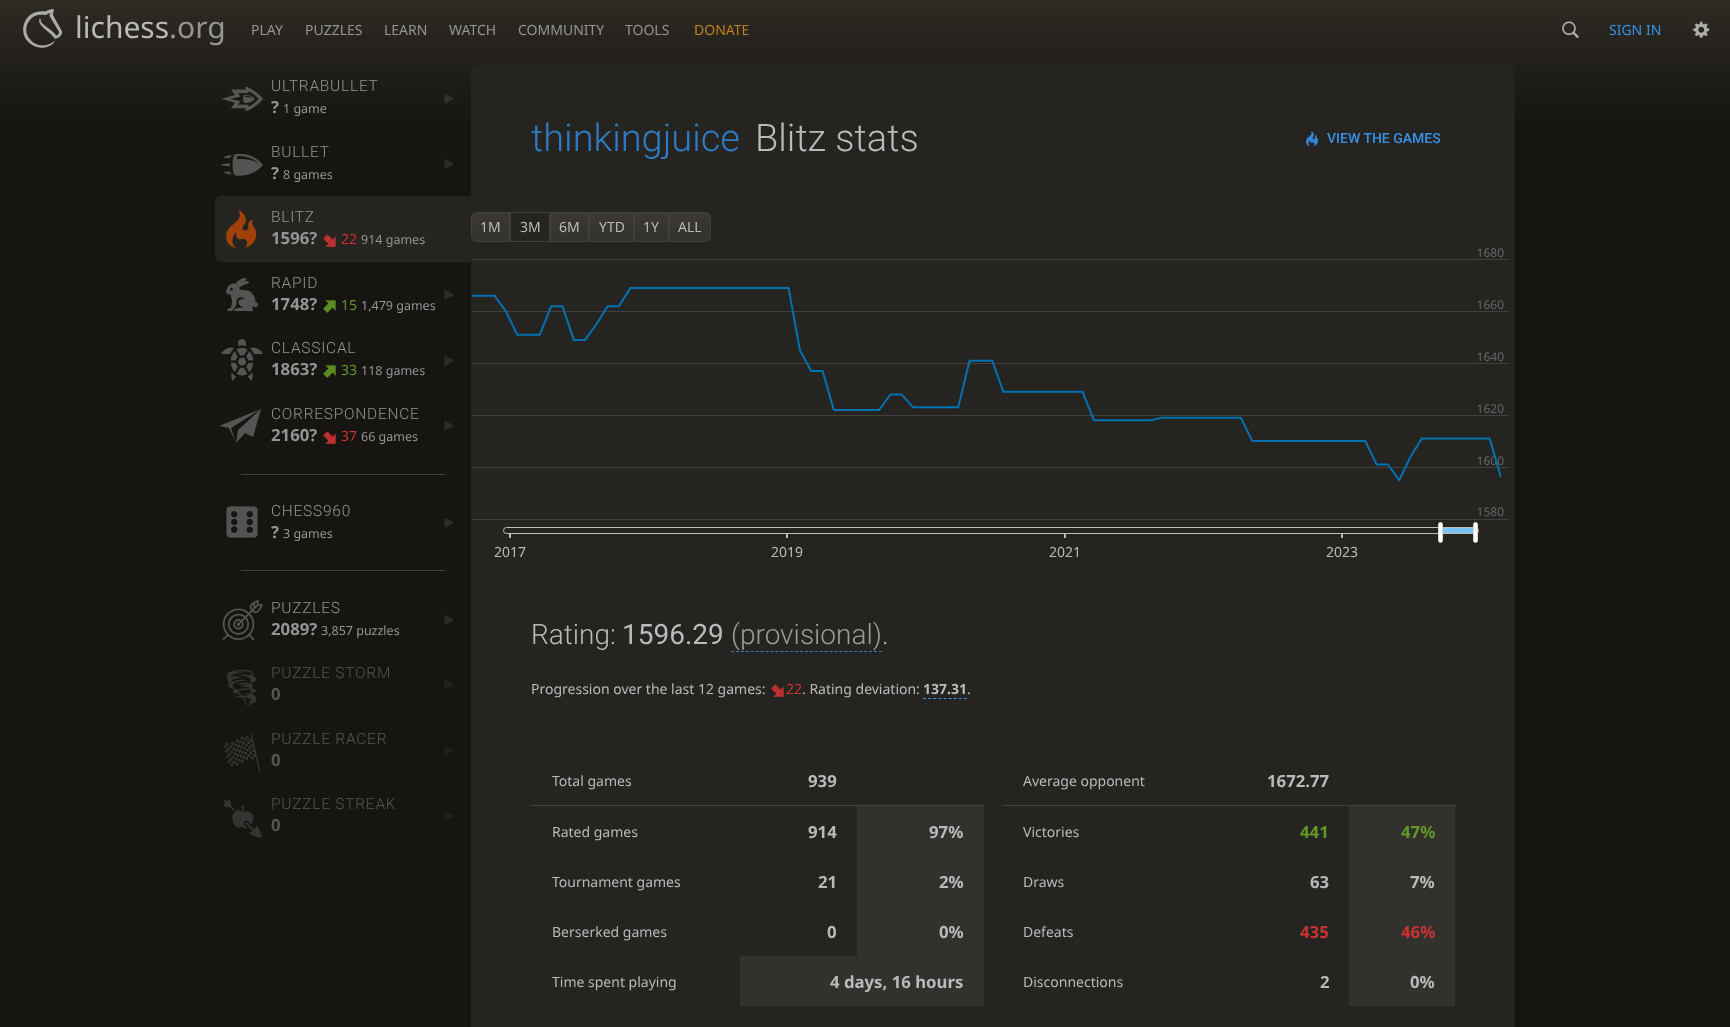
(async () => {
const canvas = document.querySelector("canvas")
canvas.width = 1730
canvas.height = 1027
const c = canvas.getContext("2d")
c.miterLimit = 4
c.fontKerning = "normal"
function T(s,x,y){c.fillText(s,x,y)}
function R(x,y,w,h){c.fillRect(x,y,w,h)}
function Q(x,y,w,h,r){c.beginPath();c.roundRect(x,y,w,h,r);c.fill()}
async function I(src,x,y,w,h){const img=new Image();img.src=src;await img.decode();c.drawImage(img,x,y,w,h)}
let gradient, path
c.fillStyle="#fff"
R(0,0,1730,1027)
gradient = c.createLinearGradient(865,0,865,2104)
gradient.addColorStop(0,"#2e2a24")
gradient.addColorStop(.06,"#161512")
c.fillStyle = gradient
R(0,0,1730,1027)
await I("1.png",23,9,39,39)
c.font="30px Noto Sans"
c.fillStyle="#bababa"
T("lichess",75,38)
c.fillStyle="#949494"
T(".org",169,38)
c.font="14px Noto Sans"
T("PLAY",251,35)
T("PUZZLES",305,35)
T("LEARN",384,35)
T("WATCH",449,35)
T("COMMUNITY",518,35)
T("TOOLS",625,35)
c.fillStyle="#bf811d"
T("DONATE",694,35)
await I("2.png",1562,21,17,17)
c.fillStyle="#3692e7"
T("SIGN IN",1609,35)
await I("3.png",1693,21,17,17)
await I("4.png",221,86,42,26)
c.letterSpacing="0.75px"
c.font="300 15.5px Roboto"
c.fillStyle="#949494"
T("ULTRABULLET",271,91)
c.letterSpacing="0px"
c.font="bold 16.75px Noto Sans"
T("?",271,113)
c.font="12.5px Noto Sans"
T("1 game",283,113)
c.fillStyle="#31302d"
path = new Path2D("M454 99l-9.5 5v-10.5l9.5 5z")
c.fill(path)
await I("5.png",221,153,42,23)
c.letterSpacing="0.75px"
c.font="300 15.5px Roboto"
c.fillStyle="#949494"
T("BULLET",271,157)
c.letterSpacing="0px"
c.font="bold 16.75px Noto Sans"
T("?",271,179)
c.font="12.5px Noto Sans"
T("8 games",283,179)
c.fillStyle="#2d2c29"
path = new Path2D("M454 164l-9.5 5v-10.5l9.5 5z")
c.fill(path)
c.fillStyle="#262421"
c.beginPath()
c.roundRect(215,196,256,66,[6,0,0,6])
c.fill()
await I("6.png",226,210,31,39)
c.letterSpacing="0.75px"
c.font="300 15.5px Roboto"
c.fillStyle="#949494"
T("BLITZ",271,222)
c.letterSpacing="0px"
c.font="bold 16.75px Noto Sans"
T("1596?",271,244)
await I("7.png",323,234,13,13)
c.font="14px Noto Sans"
c.fillStyle="#c33"
T("22",341,244)
c.font="12.5px Noto Sans"
c.fillStyle="#949494"
T("914 games",361,244)
await I("8.png",226,278,32,34)
c.letterSpacing="0.75px"
c.font="300 15.5px Roboto"
T("RAPID",271,288)
c.letterSpacing="0px"
c.font="bold 16.75px Noto Sans"
T("1748?",271,310)
await I("9.png",323,300,13,13)
c.font="14px Noto Sans"
c.fillStyle="#629924"
T("15",341,310)
c.font="12.5px Noto Sans"
c.fillStyle="#949494"
T("1,479 games",361,310)
c.fillStyle="#2d2c29"
path = new Path2D("M454 295l-9.5 5v-10.5l9.5 5z")
c.fill(path)
await I("10.png",221,339,42,42)
c.letterSpacing="0.75px"
c.font="300 15.5px Roboto"
c.fillStyle="#949494"
T("CLASSICAL",271,353)
c.letterSpacing="0px"
c.font="bold 16.75px Noto Sans"
T("1863?",271,375)
await I("9.png",323,365,13,13)
c.font="14px Noto Sans"
c.fillStyle="#629924"
T("33",341,375)
c.font="12.5px Noto Sans"
c.fillStyle="#949494"
T("118 games",361,375)
c.fillStyle="#2d2c29"
path = new Path2D("M454 361l-9.5 5v-10.5l9.5 5z")
c.fill(path)
c.fillStyle="#555553"
path = new Path2D("M238 430l-2 13l9-10l8 4l8-28zm23-21l-42 17l10 2l7 15l-5-15z")
c.fill(path)
c.letterSpacing="0.75px"
c.font="300 15.5px Roboto"
c.fillStyle="#949494"
T("CORRESPONDENCE",271,419)
c.letterSpacing="0px"
c.font="bold 16.75px Noto Sans"
T("2160?",271,441)
await I("11.png",323,431,13,13)
c.font="14px Noto Sans"
c.fillStyle="#c33"
T("37",341,441)
c.font="12.5px Noto Sans"
c.fillStyle="#949494"
T("66 games",361,441)
c.fillStyle="#2d2c29"
path = new Path2D("M454 426l-9.5 5v-10.5l9.5 5z")
c.fill(path)
c.fillStyle="#404040"
R(241,474,204,1)
await I("12.png",226,506,32,32)
c.letterSpacing="0.75px"
c.font="300 15.5px Roboto"
c.fillStyle="#949494"
T("CHESS960",271,516)
c.letterSpacing="0px"
c.font="bold 16.75px Noto Sans"
T("?",271,538)
c.font="12.5px Noto Sans"
T("3 games",283,538)
c.fillStyle="#2d2c29"
path = new Path2D("M454 523l-9.5 5v-10.5l9.5 5z")
c.fill(path)
c.fillStyle="#404040"
R(241,570,204,1)
await I("13.png",222,599,41,41)
c.letterSpacing="0.75px"
c.font="300 15.5px Roboto"
c.fillStyle="#949494"
T("PUZZLES",271,613)
c.letterSpacing="0px"
c.font="bold 16.75px Noto Sans"
T("2089?",271,635)
c.font="12.5px Noto Sans"
T("3,857 puzzles",321,635)
c.fillStyle="#2d2c29"
path = new Path2D("M454 620l-9.5 5v-10.5l9.5 5z")
c.fill(path)
await I("14.png",226,670,31,36)
c.letterSpacing="0.75px"
c.font="300 15.5px Roboto"
c.fillStyle="#555553"
T("PUZZLE STORM",271,678)
c.letterSpacing="0px"
c.font="bold 16.75px Noto Sans"
T("0",271,700)
c.fillStyle="#21201e"
path = new Path2D("M454 685l-9.5 5v-10.5l9.5 5z")
c.fill(path)
await I("15.png",223,733,38,39)
c.letterSpacing="0.75px"
c.font="300 15.5px Roboto"
c.fillStyle="#555553"
T("PUZZLE RACER",271,744)
c.letterSpacing="0px"
c.font="bold 16.75px Noto Sans"
T("0",271,766)
c.fillStyle="#21201e"
path = new Path2D("M454 751l-9.5 5v-10.5l9.5 5z")
c.fill(path)
await I("16.png",223,799,39,39)
c.letterSpacing="0.75px"
c.font="300 15.5px Roboto"
c.fillStyle="#555553"
T("PUZZLE STREAK",271,809)
c.letterSpacing="0px"
c.font="bold 16.75px Noto Sans"
T("0",271,831)
c.fillStyle="#21201e"
path = new Path2D("M454 816l-9.5 5v-10.5l9.5 5z")
c.fill(path)
c.fillStyle="#262421"
Q(471,65,1044,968,6)
c.font="300 38px Roboto"
c.fillStyle="#2e7cc5"
T("thinkingjuice",531,151)
c.fillStyle="#bababa"
T("Blitz stats",755,151)
await I("17.png",1306,131,13,16)
c.font="500 14px Roboto"
c.fillStyle="#3692e7"
T("VIEW THE GAMES",1327,143)
c.save()
c.beginPath()
c.roundRect(471,212,39,30,[6,0,0,6])
c.clip()
gradient = c.createLinearGradient(491,213,491,241)
gradient.addColorStop(0,"#3c3934")
gradient.addColorStop(1,"#33312e")
c.fillStyle = gradient
R(471,213,38,28)
c.restore()
c.beginPath()
c.roundRect(471.5,212.5,38,29,[5.5,0,0,5.5])
c.strokeStyle="#404040"
c.stroke()
c.font="14px Noto Sans"
c.fillStyle="#bababa"
T("1M",480,232)
c.strokeRect(510.5,212.5,39,29)
T("3M",520,232)
gradient = c.createLinearGradient(570,213,570,241)
gradient.addColorStop(0,"#3c3934")
gradient.addColorStop(1,"#33312e")
c.fillStyle = gradient
R(551,213,37,28)
c.strokeRect(550.5,212.5,38,29)
c.fillStyle="#bababa"
T("6M",559,232)
gradient = c.createLinearGradient(612,213,612,241)
gradient.addColorStop(0,"#3c3934")
gradient.addColorStop(1,"#33312e")
c.fillStyle = gradient
R(590,213,43,28)
c.strokeRect(589.5,212.5,44,29)
c.fillStyle="#bababa"
T("YTD",599,232)
gradient = c.createLinearGradient(652,213,652,241)
gradient.addColorStop(0,"#3c3934")
gradient.addColorStop(1,"#33312e")
c.fillStyle = gradient
R(635,213,33,28)
c.strokeRect(634.5,212.5,34,29)
c.fillStyle="#bababa"
T("1Y",643,232)
c.save()
c.beginPath()
c.roundRect(669,212,42,30,[0,6,6,0])
c.clip()
gradient = c.createLinearGradient(690,213,690,241)
gradient.addColorStop(0,"#3c3934")
gradient.addColorStop(1,"#33312e")
c.fillStyle = gradient
R(670,213,41,28)
c.restore()
c.beginPath()
c.roundRect(669.5,212.5,41,29,[0,5.5,5.5,0])
c.stroke()
T("ALL",678,232)
await I("18.png",472,248,1037,272)
c.beginPath()
c.roundRect(503.5,527.5,975,6,3)
c.strokeStyle="#bababa"
c.stroke()
c.fillStyle="#fff"
c.beginPath()
c.roundRect(1438.5,522.5,4,20,2)
c.fill()
c.strokeStyle="#d9d9d9"
c.stroke()
c.fillStyle="#76c5f3"
R(1443,528,35,5)
c.fillStyle="#fff"
c.beginPath()
c.roundRect(1473.5,522.5,4,20,2)
c.fill()
c.stroke()
c.fillStyle="#bababa"
R(509,533,2,5)
R(786,533,2,5)
R(1064,533,2,5)
R(1341,533,2,5)
T("2017",494,557)
T("2019",771,557)
T("2021",1049,557)
T("2023",1326,557)
c.font="300 28px Roboto"
T("Rating:",531,644)
c.font="28px Roboto"
T("1596.29",622,644)
c.font="300 28px Roboto"
c.fillStyle="#9c9c9b"
T("(provisional)",731,644)
path = new Path2D("M731 651.5h151")
c.strokeStyle="#337cbf"
c.setLineDash([3,1.93])
c.stroke(path)
c.fillStyle="#bababa"
T(".",882,644)
c.font="14px Noto Sans"
T("Progression over the last 12 games:",531,694)
await I("7.png",771,684,13,13)
c.fillStyle="#c33"
T("22",786,694)
c.fillStyle="#bababa"
T(". Rating deviation:",802,694)
c.font="bold 14px Noto Sans"
T("137.31",923,694)
path = new Path2D("M923 698.5h44")
c.strokeStyle="#3692e7"
c.setLineDash([3,2.12])
c.stroke(path)
c.font="14px Noto Sans"
T(".",967,694)
c.fillStyle="#404040"
R(530,805,454,1)
c.fillStyle="#bababa"
T("Total games",552,786)
c.font="bold 16.75px Noto Sans"
T("939",808,787)
c.font="14px Noto Sans"
T("Rated games",552,837)
c.font="bold 16.75px Noto Sans"
T("914",808,838)
c.fillStyle="#33312e"
R(857,806,127,150)
c.fillStyle="#bababa"
T("97%",929,838)
c.font="14px Noto Sans"
T("Tournament games",552,887)
c.font="bold 16.75px Noto Sans"
T("21",818,888)
T("2%",939,888)
c.font="14px Noto Sans"
T("Berserked games",552,937)
c.font="bold 16.75px Noto Sans"
T("0",827,938)
T("0%",939,938)
c.font="14px Noto Sans"
T("Time spent playing",552,987)
c.fillStyle="#33312e"
R(740,956,244,50)
c.font="bold 16.75px Noto Sans"
c.fillStyle="#bababa"
T("4 days, 16 hours",830,988)
c.fillStyle="#404040"
R(1002,805,454,1)
c.font="14px Noto Sans"
c.fillStyle="#bababa"
T("Average opponent",1023,786)
c.font="bold 16.75px Noto Sans"
T("1672.77",1267,787)
c.font="14px Noto Sans"
T("Victories",1023,837)
c.font="bold 16.75px Noto Sans"
c.fillStyle="#629924"
T("441",1300,838)
c.fillStyle="#33312e"
R(1349,806,106,200)
c.fillStyle="#629924"
T("47%",1401,838)
c.font="14px Noto Sans"
c.fillStyle="#bababa"
T("Draws",1023,887)
c.font="bold 16.75px Noto Sans"
T("63",1310,888)
T("7%",1410,888)
c.font="14px Noto Sans"
T("Defeats",1023,937)
c.font="bold 16.75px Noto Sans"
c.fillStyle="#c33"
T("435",1300,938)
T("46%",1401,938)
c.font="14px Noto Sans"
c.fillStyle="#bababa"
T("Disconnections",1023,987)
c.font="bold 16.75px Noto Sans"
T("2",1320,988)
T("0%",1410,988)
})()
